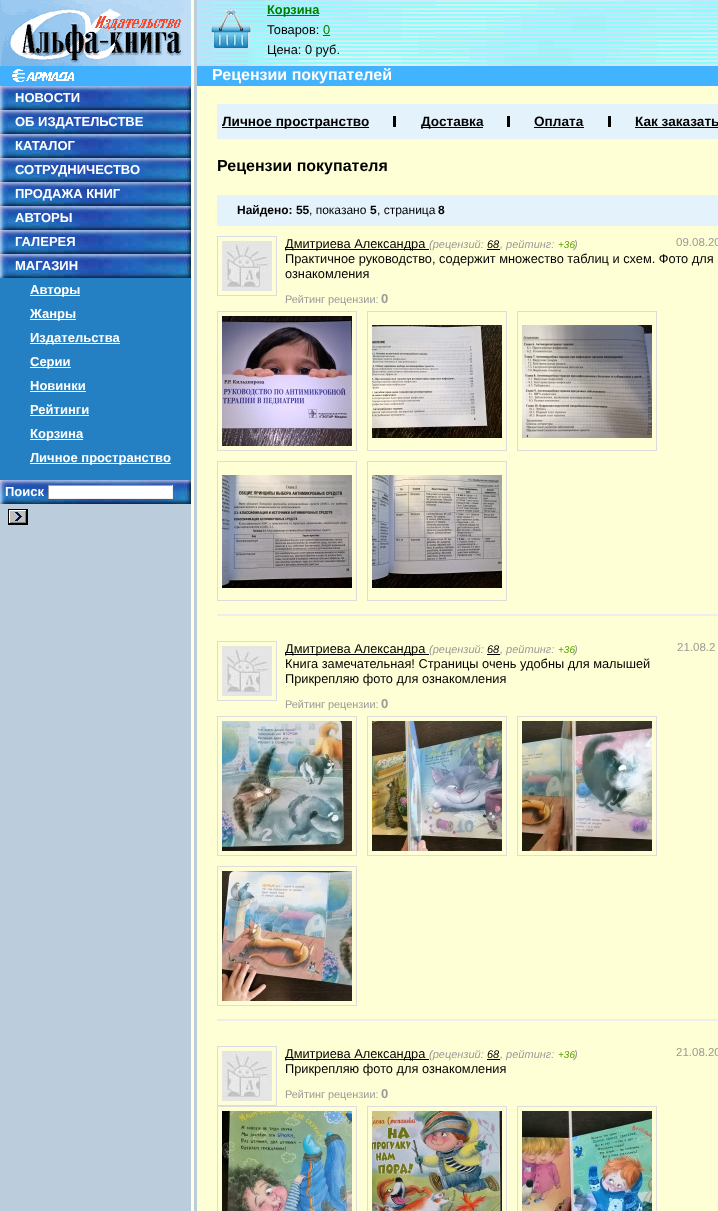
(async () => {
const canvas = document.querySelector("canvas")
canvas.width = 718
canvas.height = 1211
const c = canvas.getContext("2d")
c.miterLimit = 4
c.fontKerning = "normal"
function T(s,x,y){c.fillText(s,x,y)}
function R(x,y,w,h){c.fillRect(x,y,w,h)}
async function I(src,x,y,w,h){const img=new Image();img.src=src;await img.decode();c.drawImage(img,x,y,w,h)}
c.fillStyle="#ffffd5"
R(0,0,718,1211)
await I("1.png",0,0,197,1211)
await I("2.png",0,0,191,66)
await I("3.png",0,66,191,20)
await I("4.png",0,86,191,24)
c.font="bold 13px Liberation Sans"
c.fillStyle="#fff"
T("НОВОСТИ",15,102)
await I("4.png",0,110,191,24)
T("ОБ ИЗДАТЕЛЬСТВЕ",15,126)
await I("4.png",0,134,191,24)
T("КАТАЛОГ",15,150)
await I("4.png",0,158,191,24)
T("СОТРУДНИЧЕСТВО",15,174)
await I("4.png",0,182,191,24)
T("ПРОДАЖА КНИГ",15,198)
await I("4.png",0,206,191,24)
T("АВТОРЫ",15,222)
await I("4.png",0,230,191,24)
T("ГАЛЕРЕЯ",15,246)
await I("4.png",0,254,191,24)
T("МАГАЗИН",15,270)
c.fillStyle="#2480c3"
R(0,278,191,202)
c.fillStyle="#fff"
R(30,295,50,1)
T("Авторы",30,294)
R(30,319,46,1)
T("Жанры",30,318)
R(30,343,90,1)
T("Издательства",30,342)
R(30,367,41,1)
T("Серии",30,366)
T("Новинки",30,390)
R(30,391,56,1)
T("Рейтинги",30,414)
R(30,415,59,1)
R(30,439,53,1)
T("Корзина",30,438)
R(30,463,141,1)
T("Личное пространство",30,462)
await I("4.png",0,480,191,24)
T("Поиск",5,496)
R(49,486,123,12)
c.fillStyle="#9f9f9f"
R(48,485,125,1)
c.fillStyle="#eee"
R(172,485,1,14)
R(48,498,125,1)
c.fillStyle="#9f9f9f"
R(48,485,1,14)
await I("5.png",8,509,20,16)
await I("6.png",197,0,521,66)
await I("7.png",211,10,40,38)
c.fillStyle="#008000"
R(267,15,52,1)
c.font="bold 12.8px Liberation Sans"
T("Корзина",267,14)
c.font="12.8px Liberation Sans"
c.fillStyle="#000"
T("Товаров:",267,34)
c.fillStyle="#008000"
T("0",323,34)
R(323,35,7,1)
c.fillStyle="#000"
T("Цена: 0 руб.",267,54)
c.fillStyle="#41b3ff"
R(197,66,521,20)
c.font="bold 16px Liberation Sans"
c.fillStyle="#fff"
T("Рецензии покупателей",212,80)
c.fillStyle="#e4f2fb"
R(217,104,501,35)
c.fillStyle="#000"
R(222,127,147,1)
c.font="bold 13.6px Liberation Sans"
T("Личное пространство",222,126)
R(393,116,3,11)
R(421,127,62,1)
T("Доставка",421,126)
R(507,116,3,11)
T("Оплата",534,126)
R(534,127,50,1)
R(608,116,3,11)
T("Как заказать",635,126)
R(635,127,83,1)
c.font="bold 16px Liberation Sans"
T("Рецензии покупателя",217,171)
c.fillStyle="#e4f2fb"
R(217,195,501,31)
c.font="bold 12px Liberation Sans"
c.fillStyle="#000"
T("Найдено: 55",237,214)
c.font="12px Liberation Sans"
T(", показано",309,214)
c.font="bold 12px Liberation Sans"
T("5",370,214)
c.font="12px Liberation Sans"
T(", страница",377,214)
c.font="bold 12px Liberation Sans"
T("8",438,214)
c.strokeStyle="#dadce5"
c.strokeRect(217.5,236.5,59,59)
await I("8.png",222,241,50,50)
R(285,249,144,1)
c.font="12.8px Liberation Sans"
T("Дмитриева Александра",285,248)
c.font="italic 11px Liberation Sans"
c.fillStyle="#999"
T("(рецензий:",429,248)
c.fillStyle="#000"
T("68",487,248)
c.fillStyle="#999"
T(", рейтинг:",500,248)
c.fillStyle="#000"
R(487,249,13,1)
c.font="italic 10px Liberation Sans"
c.fillStyle="#5ca103"
T("+36",558,248)
c.font="italic 11px Liberation Sans"
c.fillStyle="#999"
T(")",574,248)
c.font="11.5px Liberation Sans"
T("09.08.20",676,246)
c.font="12.8px Liberation Sans"
c.fillStyle="#000"
T("Практичное руководство, содержит множество таблиц и схем. Фото для",285,263)
T("ознакомления",285,278)
c.font="10.9px Liberation Sans"
c.fillStyle="#999"
T("Рейтинг рецензии:",285,303)
c.font="bold 13px Liberation Sans"
T("0",381,303)
c.strokeStyle="#ddd"
c.strokeRect(217.5,311.5,139,139)
await I("9.png",222,316,130,130)
c.strokeRect(367.5,311.5,139,139)
await I("10.png",372,325,130,113)
c.strokeRect(517.5,311.5,139,139)
await I("11.png",522,325,130,113)
c.strokeRect(217.5,461.5,139,139)
await I("12.png",222,475,130,113)
c.strokeRect(367.5,461.5,139,139)
await I("13.png",372,475,130,113)
c.fillStyle="#eee"
R(217,614,501,2)
c.strokeStyle="#dadce5"
c.strokeRect(217.5,641.5,59,59)
await I("8.png",222,646,50,50)
c.fillStyle="#000"
R(285,654,144,1)
c.font="12.8px Liberation Sans"
T("Дмитриева Александра",285,653)
c.font="italic 11px Liberation Sans"
c.fillStyle="#999"
T("(рецензий:",429,653)
c.fillStyle="#000"
T("68",487,653)
c.fillStyle="#999"
T(", рейтинг:",500,653)
c.fillStyle="#000"
R(487,654,13,1)
c.font="italic 10px Liberation Sans"
c.fillStyle="#5ca103"
T("+36",558,653)
c.font="italic 11px Liberation Sans"
c.fillStyle="#999"
T(")",574,653)
c.font="11.5px Liberation Sans"
T("21.08.2",677,651)
c.font="12.8px Liberation Sans"
c.fillStyle="#000"
T("Книга замечательная! Страницы очень удобны для малышей",285,668)
T("Прикрепляю фото для ознакомления",285,683)
c.font="10.9px Liberation Sans"
c.fillStyle="#999"
T("Рейтинг рецензии:",285,708)
c.font="bold 13px Liberation Sans"
T("0",381,708)
c.strokeStyle="#ddd"
c.strokeRect(217.5,716.5,139,139)
await I("14.png",222,721,130,130)
c.strokeRect(367.5,716.5,139,139)
await I("15.png",372,721,130,130)
c.strokeRect(517.5,716.5,139,139)
await I("16.png",522,721,130,130)
c.strokeRect(217.5,866.5,139,139)
await I("17.png",222,871,130,130)
c.fillStyle="#eee"
R(217,1019,501,2)
c.strokeStyle="#dadce5"
c.strokeRect(217.5,1046.5,59,59)
await I("8.png",222,1051,50,50)
c.fillStyle="#000"
R(285,1059,144,1)
c.font="12.8px Liberation Sans"
T("Дмитриева Александра",285,1058)
c.font="italic 11px Liberation Sans"
c.fillStyle="#999"
T("(рецензий:",429,1058)
c.fillStyle="#000"
T("68",487,1058)
c.fillStyle="#999"
T(", рейтинг:",500,1058)
c.fillStyle="#000"
R(487,1059,13,1)
c.font="italic 10px Liberation Sans"
c.fillStyle="#5ca103"
T("+36",558,1058)
c.font="italic 11px Liberation Sans"
c.fillStyle="#999"
T(")",574,1058)
c.font="11.5px Liberation Sans"
T("21.08.20",676,1056)
c.font="12.8px Liberation Sans"
c.fillStyle="#000"
T("Прикрепляю фото для ознакомления",285,1073)
c.font="10.9px Liberation Sans"
c.fillStyle="#999"
T("Рейтинг рецензии:",285,1098)
c.font="bold 13px Liberation Sans"
T("0",381,1098)
c.strokeStyle="#ddd"
c.strokeRect(217.5,1106.5,139,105)
await I("18.png",222,1111,130,100)
c.strokeRect(367.5,1106.5,139,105)
await I("19.png",372,1111,130,100)
c.strokeRect(517.5,1106.5,139,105)
await I("20.png",522,1111,130,100)
})()
